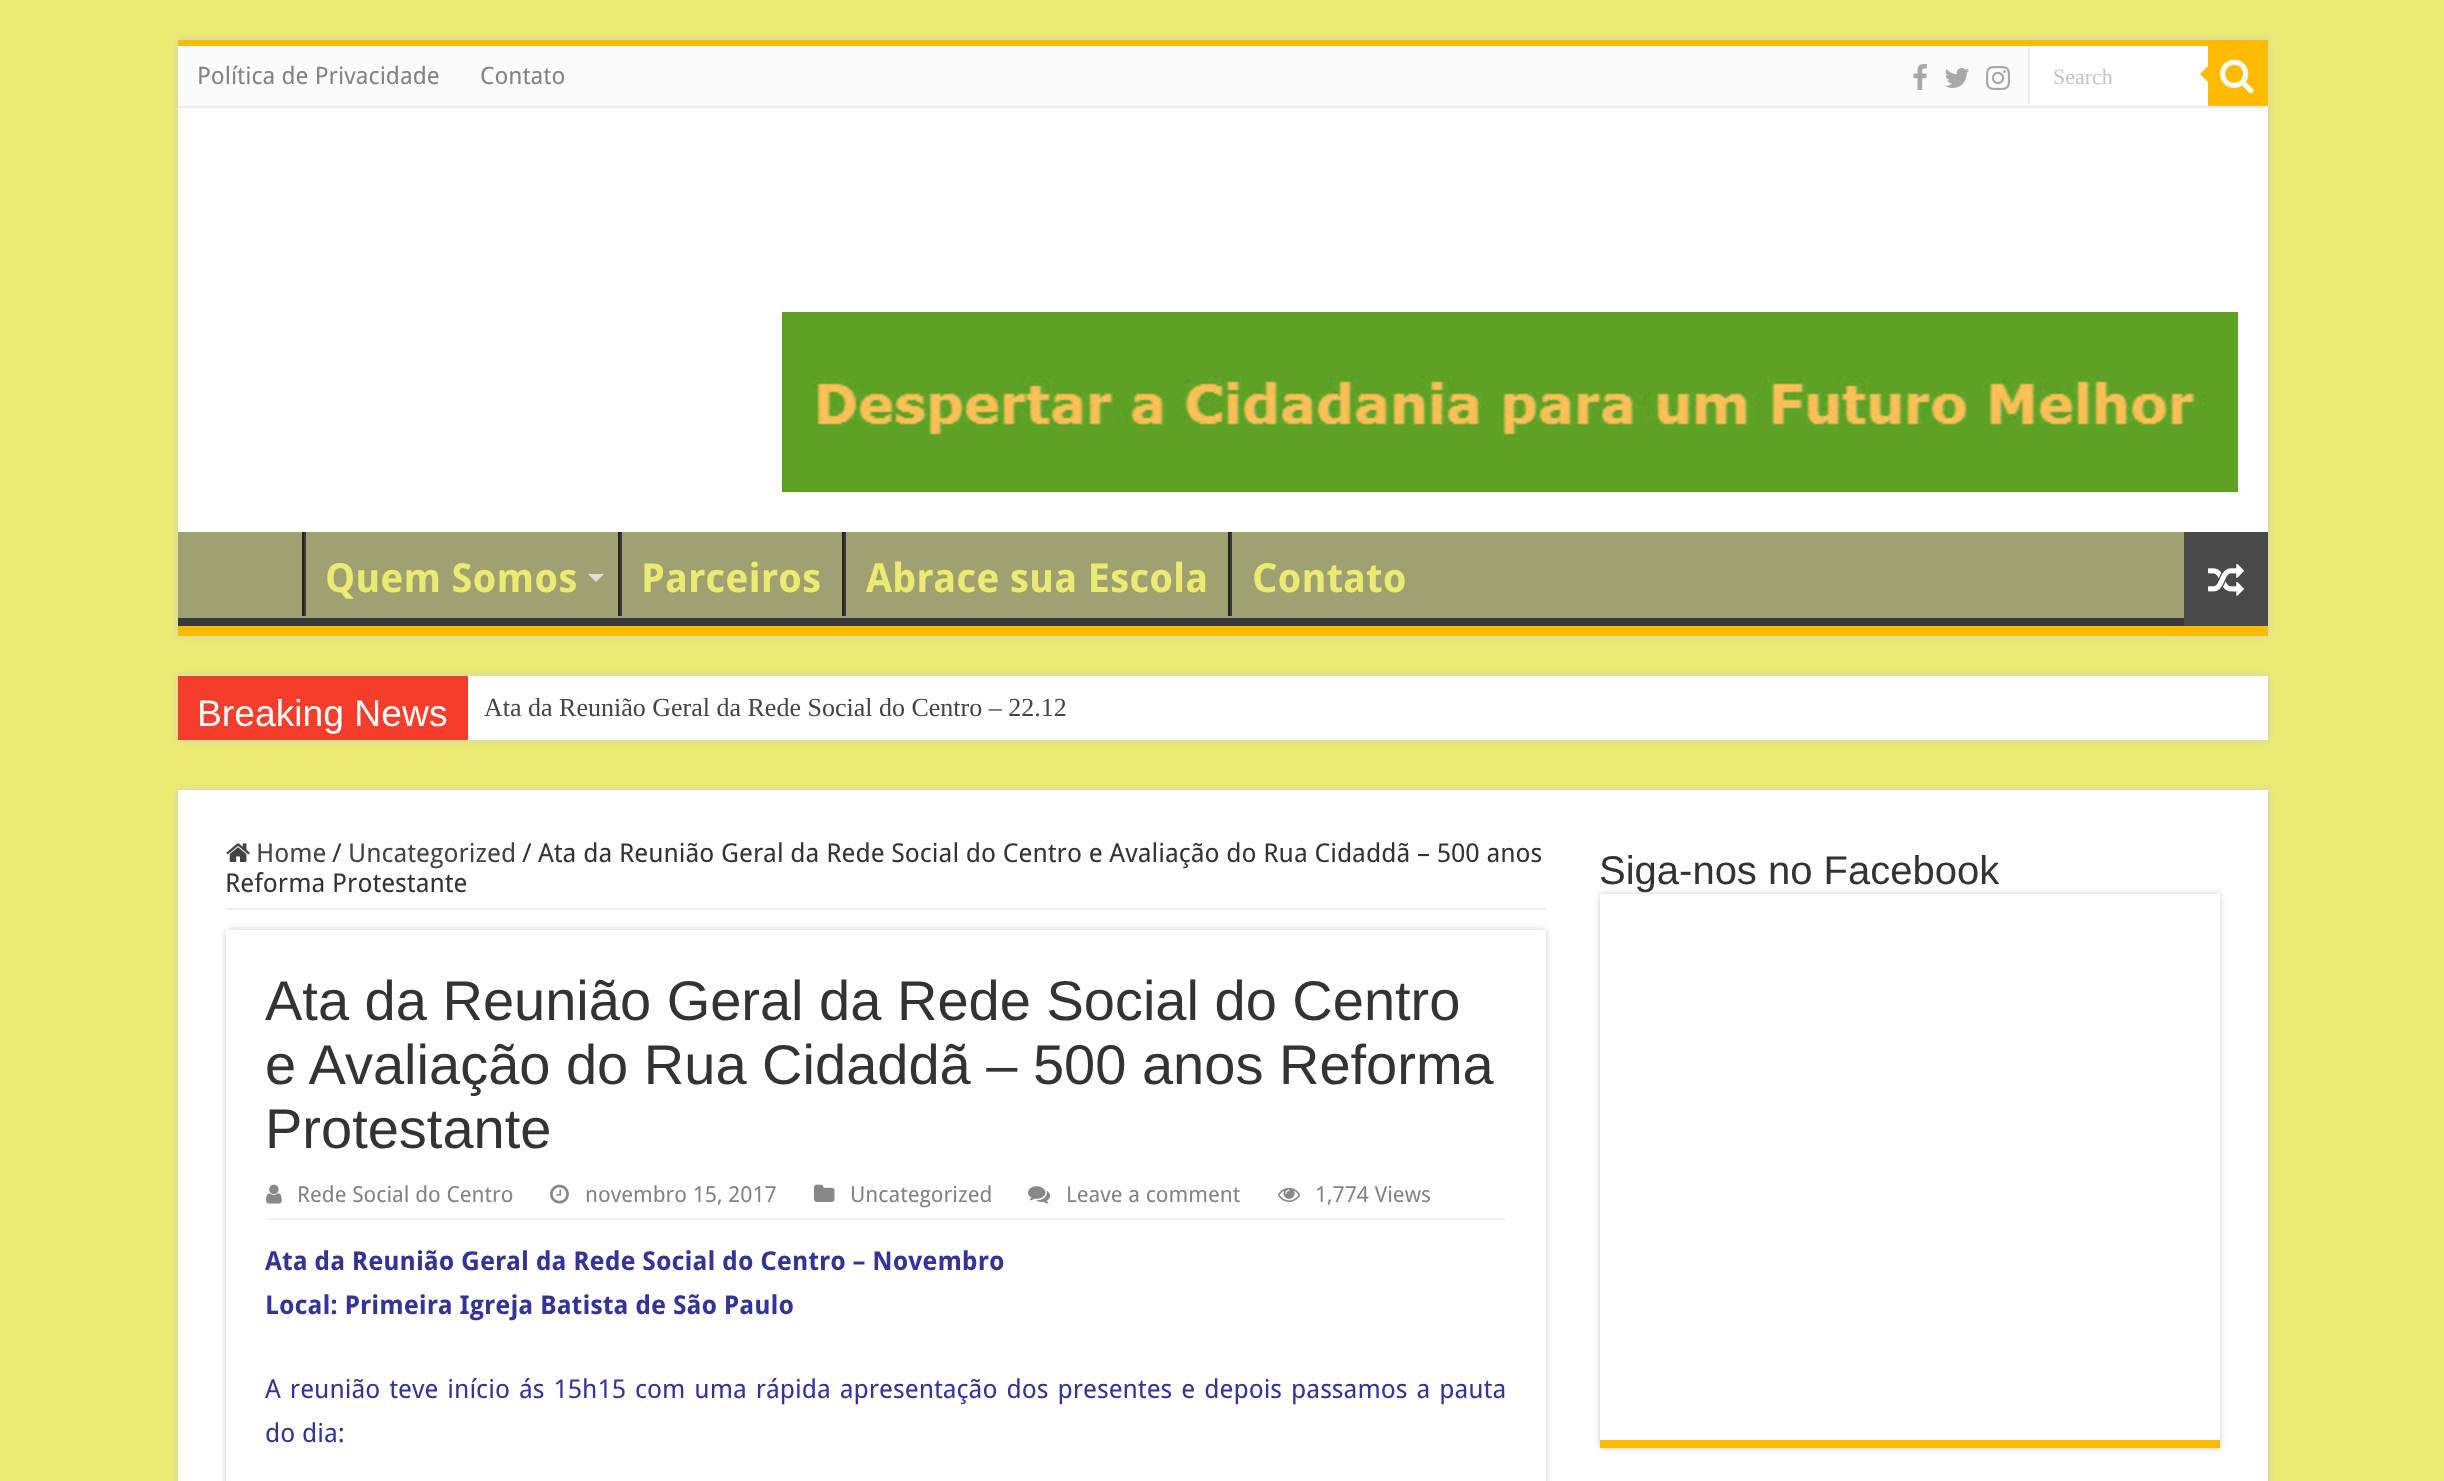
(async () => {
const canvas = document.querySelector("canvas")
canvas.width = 2444
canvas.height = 1481
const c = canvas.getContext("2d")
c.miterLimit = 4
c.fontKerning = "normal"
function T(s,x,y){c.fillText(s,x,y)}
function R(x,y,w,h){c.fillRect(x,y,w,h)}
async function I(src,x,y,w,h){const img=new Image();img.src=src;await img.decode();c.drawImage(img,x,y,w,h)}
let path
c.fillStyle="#ebeb73"
R(0,0,2444,1481)
c.fillStyle="#cacaca"
c.filter="blur(3px)"
c.beginPath()
c.rect(178,40,2090,596)
c.fill()
c.filter="none"
c.fillStyle="#fff"
R(178,108,2090,424)
c.fillStyle="#ffbb01"
R(178,40,2090,6)
c.fillStyle="#fbfbfb"
R(178,46,2030,60)
c.fillStyle="#ececec"
R(178,106,2090,2)
c.font="24px Droid Sans"
c.fillStyle="#838383"
T("Política de Privacidade",197,84)
T("Contato",480,84)
await I("1.png",1913,64,14,26)
await I("2.png",1945,68,24,20)
await I("3.png",1986,66,24,24)
c.fillStyle="#fff"
R(2030,46,178,58)
c.fillStyle="#ececec"
R(2028,46,2,58)
c.font="22px Liberation Serif"
c.fillStyle="#c5c5c5"
T("Search",2053,84)
c.fillStyle="#ffbb01"
R(2208,46,60,60)
await I("4.png",2220,59,34,35)
path = new Path2D("M2208 66v16l-8-8z")
c.fill(path)
await I("5.png",782,312,1456,180)
c.fillStyle="#9fa170"
R(178,532,2006,86)
c.save()
c.beginPath()
c.rect(178,532,2090,94)
c.clip()
c.fillStyle="#393939"
path = new Path2D("M-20 334h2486v490h-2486zm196 186h2090c1 0 2 1 2 2v94c0 1-1 2-2 2h-2090c-1 0-2-1-2-2v-94c0-1 1-2 2-2z")
c.fill(path,"evenodd")
c.restore()
c.fillStyle="#ffbb01"
R(178,626,2090,10)
c.fillStyle="#222"
R(302,532,2,84)
c.fillStyle="#383838"
R(304,532,2,84)
c.font="bold 40px Droid Sans"
c.fillStyle="#ebeb73"
T("Quem Somos",325,592)
c.fillStyle="#ddd"
path = new Path2D("M588 574h16l-8 8z")
c.fill(path)
c.fillStyle="#222"
R(618,532,2,84)
c.fillStyle="#383838"
R(620,532,2,84)
c.fillStyle="#ebeb73"
T("Parceiros",641,592)
c.fillStyle="#222"
R(842,532,2,84)
c.fillStyle="#383838"
R(844,532,2,84)
c.fillStyle="#ebeb73"
T("Abrace sua Escola",866,592)
c.fillStyle="#222"
R(1228,532,2,84)
c.fillStyle="#383838"
R(1230,532,2,84)
c.fillStyle="#ebeb73"
T("Contato",1252,592)
c.fillStyle="#494949"
R(2184,532,84,94)
await I("6.png",2208,563,36,33)
c.fillStyle="#cacaca"
c.filter="blur(3px)"
c.beginPath()
c.rect(178,676,2090,64)
c.fill()
c.filter="none"
c.fillStyle="#fff"
R(468,676,1800,64)
c.fillStyle="#f43d2a"
R(178,676,290,64)
c.font="37.25px Liberation Sans"
c.fillStyle="#fff"
T("Breaking News",197,726)
c.font="26px Liberation Serif"
c.fillStyle="#444"
T("Ata da Reunião Geral da Rede Social do Centro – 22.12",484,716)
c.fillStyle="#cacaca"
c.filter="blur(3px)"
c.beginPath()
c.rect(178,790,2090,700)
c.fill()
c.filter="none"
c.fillStyle="#fff"
R(178,790,2090,691)
c.fillStyle="#eee"
R(226,908,1320,2)
await I("7.png",226,843,24,19)
c.font="26px Droid Sans"
c.fillStyle="#444"
T("Home",256,862)
c.fillStyle="#333"
T("/",332,862)
c.fillStyle="#444"
T("Uncategorized",348,862)
c.fillStyle="#333"
T("/",522,862)
T("Ata da Reunião Geral da Rede Social do Centro e Avaliação do Rua Cidaddã – 500 anos",538,862)
T("Reforma Protestante",225,892)
c.save()
path = new Path2D("M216 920h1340v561h-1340zm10 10h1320v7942h-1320z")
c.clip(path,"evenodd")
c.fillStyle="#cacaca"
c.filter="blur(3px)"
c.beginPath()
c.rect(226,930,1320,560)
c.fill()
c.filter="none"
c.restore()
c.font="56px Liberation Sans"
T("Ata da Reunião Geral da Rede Social do Centro",265,1020)
T("e Avaliação do Rua Cidaddã – 500 anos Reforma",265,1084)
T("Protestante",265,1148)
c.fillStyle="#f2f2f2"
R(266,1218,1240,2)
await I("8.png",266,1184,16,20)
c.font="22px Droid Sans"
c.fillStyle="#838383"
T("Rede Social do Centro",297,1202)
await I("9.png",550,1184,19,20)
T("novembro 15, 2017",585,1202)
await I("10.png",814,1184,21,18)
T("Uncategorized",850,1202)
await I("11.png",1028,1186,23,18)
T("Leave a comment",1066,1202)
await I("12.png",1278,1187,22,15)
T("1,774 Views",1315,1202)
c.font="bold 26px Droid Sans"
c.fillStyle="#339"
T("Ata da Reunião Geral da Rede Social do Centro – Novembro",265,1270)
T("Local: Primeira Igreja Batista de São Paulo",265,1314)
c.wordSpacing="2.25px"
c.font="26px Droid Sans"
T("A reunião teve início ás 15h15 com uma rápida apresentação dos presentes e depois passamos a pauta",265,1398)
c.wordSpacing="0px"
T("do dia:",265,1442)
c.save()
path = new Path2D("M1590 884h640v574h-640zm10 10h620v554h-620z")
c.clip(path,"evenodd")
c.fillStyle="#cacaca"
c.filter="blur(3px)"
c.beginPath()
c.rect(1600,894,620,554)
c.fill()
c.filter="none"
c.restore()
c.font="40px Liberation Sans"
c.fillStyle="#333"
T("Siga-nos no Facebook",1599,884)
c.fillStyle="#ffbb01"
R(1600,1440,620,8)
})()
